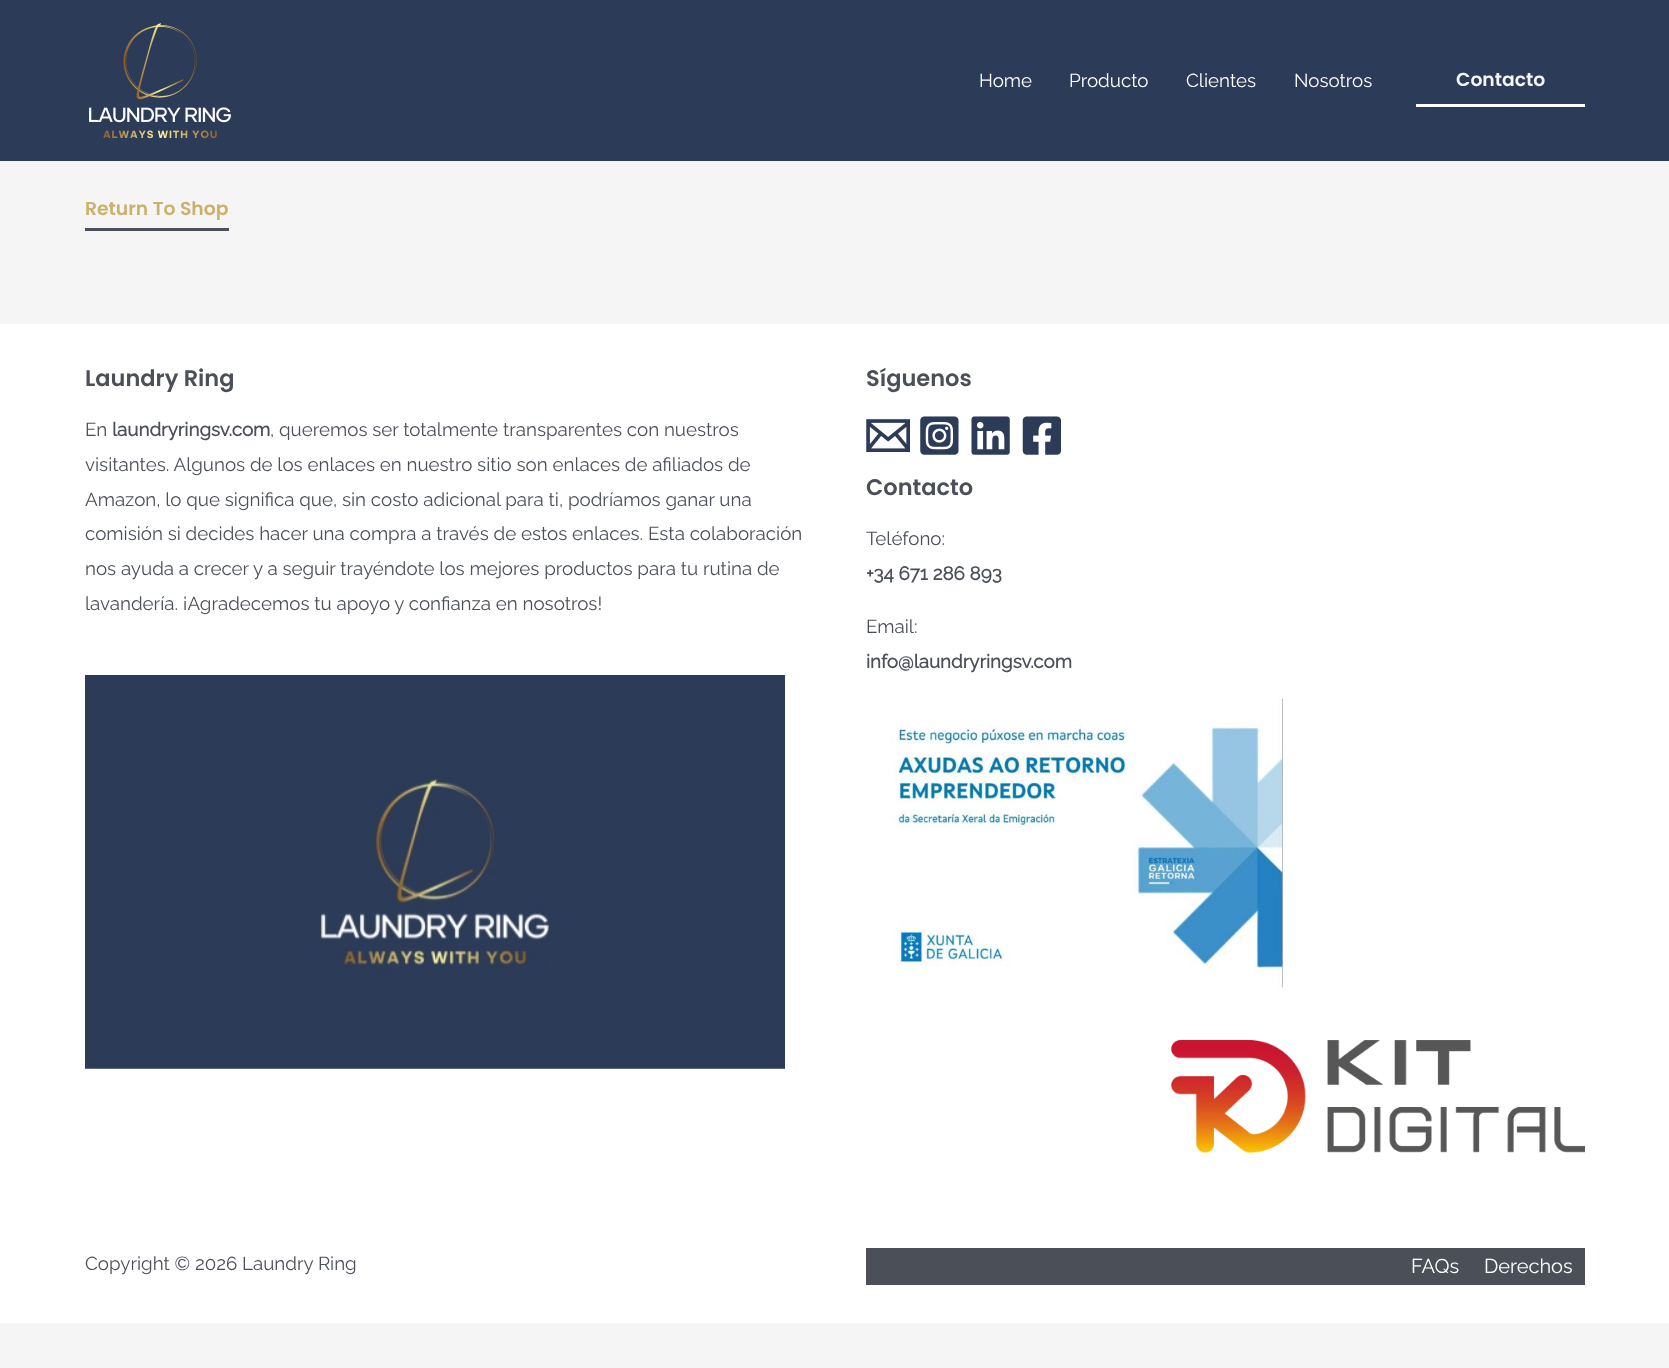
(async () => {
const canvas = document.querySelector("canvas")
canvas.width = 1669
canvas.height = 1368
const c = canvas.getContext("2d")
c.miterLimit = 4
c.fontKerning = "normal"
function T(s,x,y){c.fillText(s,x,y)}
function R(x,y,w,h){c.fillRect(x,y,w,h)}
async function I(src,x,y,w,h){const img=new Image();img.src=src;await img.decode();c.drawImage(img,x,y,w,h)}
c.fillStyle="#f5f5f5"
R(0,0,1669,1368)
c.fillStyle="#2c3b58"
R(0,0,1669,161)
await I("1.png",89,23,142,116)
c.font="100 18.75px Raleway"
c.fillStyle="#fff"
T("Home",979,87)
T("Producto",1069,87)
T("Clientes",1186,87)
T("Nosotros",1294,87)
R(1416,104,169,3)
c.font="600 18.75px Poppins"
c.fillStyle="#f5f5f5"
T("Contacto",1456,86)
c.fillStyle="#4b4f58"
R(85,228,144,3)
c.fillStyle="#ccb16c"
T("Return To Shop",85,215)
c.fillStyle="#fff"
R(0,324,1669,999)
c.font="600 22.5px Poppins"
c.fillStyle="#4b4f58"
T("Laundry Ring",85,386)
c.font="100 18.75px Raleway"
T("En",85,436)
c.font="bold 18.75px Raleway"
T("laundryringsv.com",112,436)
c.font="100 18.75px Raleway"
T(", queremos ser totalmente transparentes con nuestros",270,436)
T("visitantes. Algunos de los enlaces en nuestro sitio son enlaces de afiliados de",85,471)
T("Amazon, lo que significa que, sin costo adicional para ti, podríamos ganar una",85,506)
T("comisión si decides hacer una compra a través de estos enlaces. Esta colaboración",85,540)
T("nos ayuda a crecer y a seguir trayéndote los mejores productos para tu rutina de",85,575)
T("lavandería. ¡Agradecemos tu apoyo y confianza en nosotros!",85,610)
await I("2.png",85,675,700,394)
c.font="600 22.5px Poppins"
T("Síguenos",866,386)
await I("3.png",866,419,44,33)
await I("4.png",920,416,39,39)
await I("5.png",971,416,39,39)
await I("6.png",1022,416,39,39)
T("Contacto",866,495)
c.font="100 18.75px Raleway"
T("Teléfono:",866,545)
c.font="bold 18.75px Raleway"
T("+34 671 286 893",866,580)
c.font="100 18.75px Raleway"
T("Email:",866,633)
c.font="bold 18.75px Raleway"
T("info@laundryringsv.com",866,668)
await I("7.png",889,698,394,290)
await I("8.png",1171,1040,414,113)
c.font="100 18.75px Raleway"
T("Copyright © 2026 Laundry Ring",85,1270)
R(866,1248,719,37)
c.font="100 20px Raleway"
c.fillStyle="#fff"
T("FAQs",1411,1273)
T("Derechos",1484,1273)
})()
